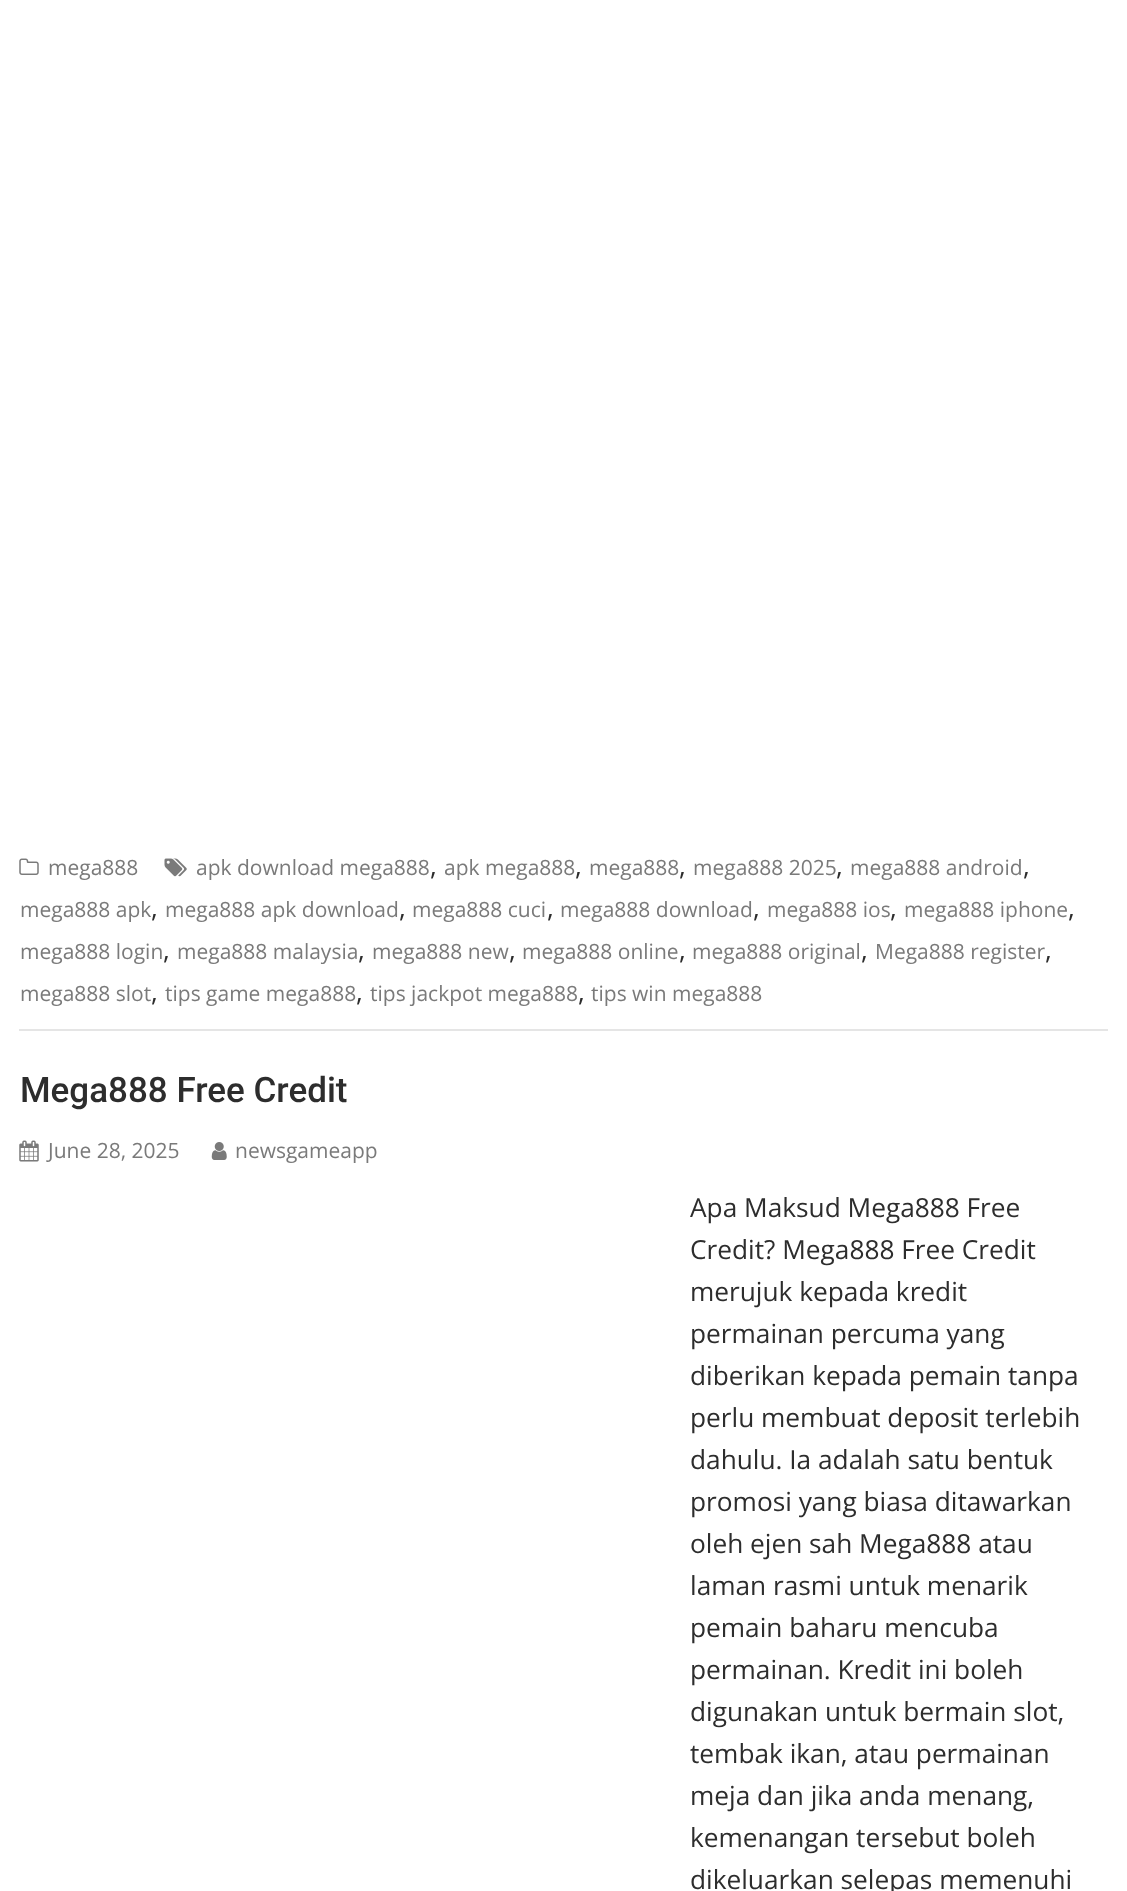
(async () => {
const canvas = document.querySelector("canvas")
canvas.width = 1127
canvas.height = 1891
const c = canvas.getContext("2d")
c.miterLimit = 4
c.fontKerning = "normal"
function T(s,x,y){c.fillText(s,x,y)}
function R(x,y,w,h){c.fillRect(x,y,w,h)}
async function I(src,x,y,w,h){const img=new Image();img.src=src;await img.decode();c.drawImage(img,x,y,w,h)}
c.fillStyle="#fff"
R(0,0,1127,1891)
c.fillStyle="#e5e5e5"
R(19,1029,1089,2)
await I("1.png",164,858,23,19)
c.font="21px Open Sans"
c.fillStyle="#7a7a7a"
T("apk download mega888",196,875)
c.font="26.25px Open Sans"
c.fillStyle="#2d2d2d"
T(",",430,875)
c.font="21px Open Sans"
c.fillStyle="#7a7a7a"
T("apk mega888",444,875)
c.font="26.25px Open Sans"
c.fillStyle="#2d2d2d"
T(",",575,875)
c.font="21px Open Sans"
c.fillStyle="#7a7a7a"
T("mega888",589,875)
c.font="26.25px Open Sans"
c.fillStyle="#2d2d2d"
T(",",679,875)
c.font="21px Open Sans"
c.fillStyle="#7a7a7a"
T("mega888 2025",693,875)
c.font="26.25px Open Sans"
c.fillStyle="#2d2d2d"
T(",",836,875)
c.font="21px Open Sans"
c.fillStyle="#7a7a7a"
T("mega888 android",850,875)
c.font="26.25px Open Sans"
c.fillStyle="#2d2d2d"
T(",",1023,875)
c.font="21px Open Sans"
c.fillStyle="#7a7a7a"
T("mega888 apk",20,917)
c.font="26.25px Open Sans"
c.fillStyle="#2d2d2d"
T(",",151,917)
c.font="21px Open Sans"
c.fillStyle="#7a7a7a"
T("mega888 apk download",165,917)
c.font="26.25px Open Sans"
c.fillStyle="#2d2d2d"
T(",",399,917)
c.font="21px Open Sans"
c.fillStyle="#7a7a7a"
T("mega888 cuci",412,917)
c.font="26.25px Open Sans"
c.fillStyle="#2d2d2d"
T(",",547,917)
c.font="21px Open Sans"
c.fillStyle="#7a7a7a"
T("mega888 download",560,917)
c.font="26.25px Open Sans"
c.fillStyle="#2d2d2d"
T(",",753,917)
c.font="21px Open Sans"
c.fillStyle="#7a7a7a"
T("mega888 ios",767,917)
c.font="26.25px Open Sans"
c.fillStyle="#2d2d2d"
T(",",890,917)
c.font="21px Open Sans"
c.fillStyle="#7a7a7a"
T("mega888 iphone",904,917)
c.font="26.25px Open Sans"
c.fillStyle="#2d2d2d"
T(",",1068,917)
c.font="21px Open Sans"
c.fillStyle="#7a7a7a"
T("mega888 login",20,959)
c.font="26.25px Open Sans"
c.fillStyle="#2d2d2d"
T(",",163,959)
c.font="21px Open Sans"
c.fillStyle="#7a7a7a"
T("mega888 malaysia",177,959)
c.font="26.25px Open Sans"
c.fillStyle="#2d2d2d"
T(",",358,959)
c.font="21px Open Sans"
c.fillStyle="#7a7a7a"
T("mega888 new",372,959)
c.font="26.25px Open Sans"
c.fillStyle="#2d2d2d"
T(",",509,959)
c.font="21px Open Sans"
c.fillStyle="#7a7a7a"
T("mega888 online",522,959)
c.font="26.25px Open Sans"
c.fillStyle="#2d2d2d"
T(",",679,959)
c.font="21px Open Sans"
c.fillStyle="#7a7a7a"
T("mega888 original",692,959)
c.font="26.25px Open Sans"
c.fillStyle="#2d2d2d"
T(",",861,959)
c.font="21px Open Sans"
c.fillStyle="#7a7a7a"
T("Mega888 register",875,959)
c.font="26.25px Open Sans"
c.fillStyle="#2d2d2d"
T(",",1045,959)
c.font="21px Open Sans"
c.fillStyle="#7a7a7a"
T("mega888 slot",20,1001)
c.font="26.25px Open Sans"
c.fillStyle="#2d2d2d"
T(",",151,1001)
c.font="21px Open Sans"
c.fillStyle="#7a7a7a"
T("tips game mega888",165,1001)
c.font="26.25px Open Sans"
c.fillStyle="#2d2d2d"
T(",",356,1001)
c.font="21px Open Sans"
c.fillStyle="#7a7a7a"
T("tips jackpot mega888",370,1001)
c.font="26.25px Open Sans"
c.fillStyle="#2d2d2d"
T(",",578,1001)
c.font="21px Open Sans"
c.fillStyle="#7a7a7a"
T("tips win mega888",591,1001)
await I("2.png",19,858,20,17)
T("mega888",48,875)
c.font="500 35px Roboto"
c.fillStyle="#2d2d2d"
T("Mega888 Free Credit",20,1102)
await I("3.png",19,1140,20,22)
c.font="21px Open Sans"
c.fillStyle="#7a7a7a"
T("June 28, 2025",48,1158)
await I("4.png",211,1142,16,18)
T("newsgameapp",235,1158)
c.font="26.25px Open Sans"
c.fillStyle="#2d2d2d"
T("Apa Maksud Mega888 Free",690,1217)
T("Credit? Mega888 Free Credit",690,1259)
T("merujuk kepada kredit",690,1301)
T("permainan percuma yang",690,1343)
T("diberikan kepada pemain tanpa",690,1385)
T("perlu membuat deposit terlebih",690,1427)
T("dahulu. Ia adalah satu bentuk",690,1469)
T("promosi yang biasa ditawarkan",690,1511)
T("oleh ejen sah Mega888 atau",690,1553)
T("laman rasmi untuk menarik",690,1595)
T("pemain baharu mencuba",690,1637)
T("permainan. Kredit ini boleh",690,1679)
T("digunakan untuk bermain slot,",690,1721)
T("tembak ikan, atau permainan",690,1763)
T("meja dan jika anda menang,",690,1805)
T("kemenangan tersebut boleh",690,1847)
T("dikeluarkan selepas memenuhi",690,1889)
})()
